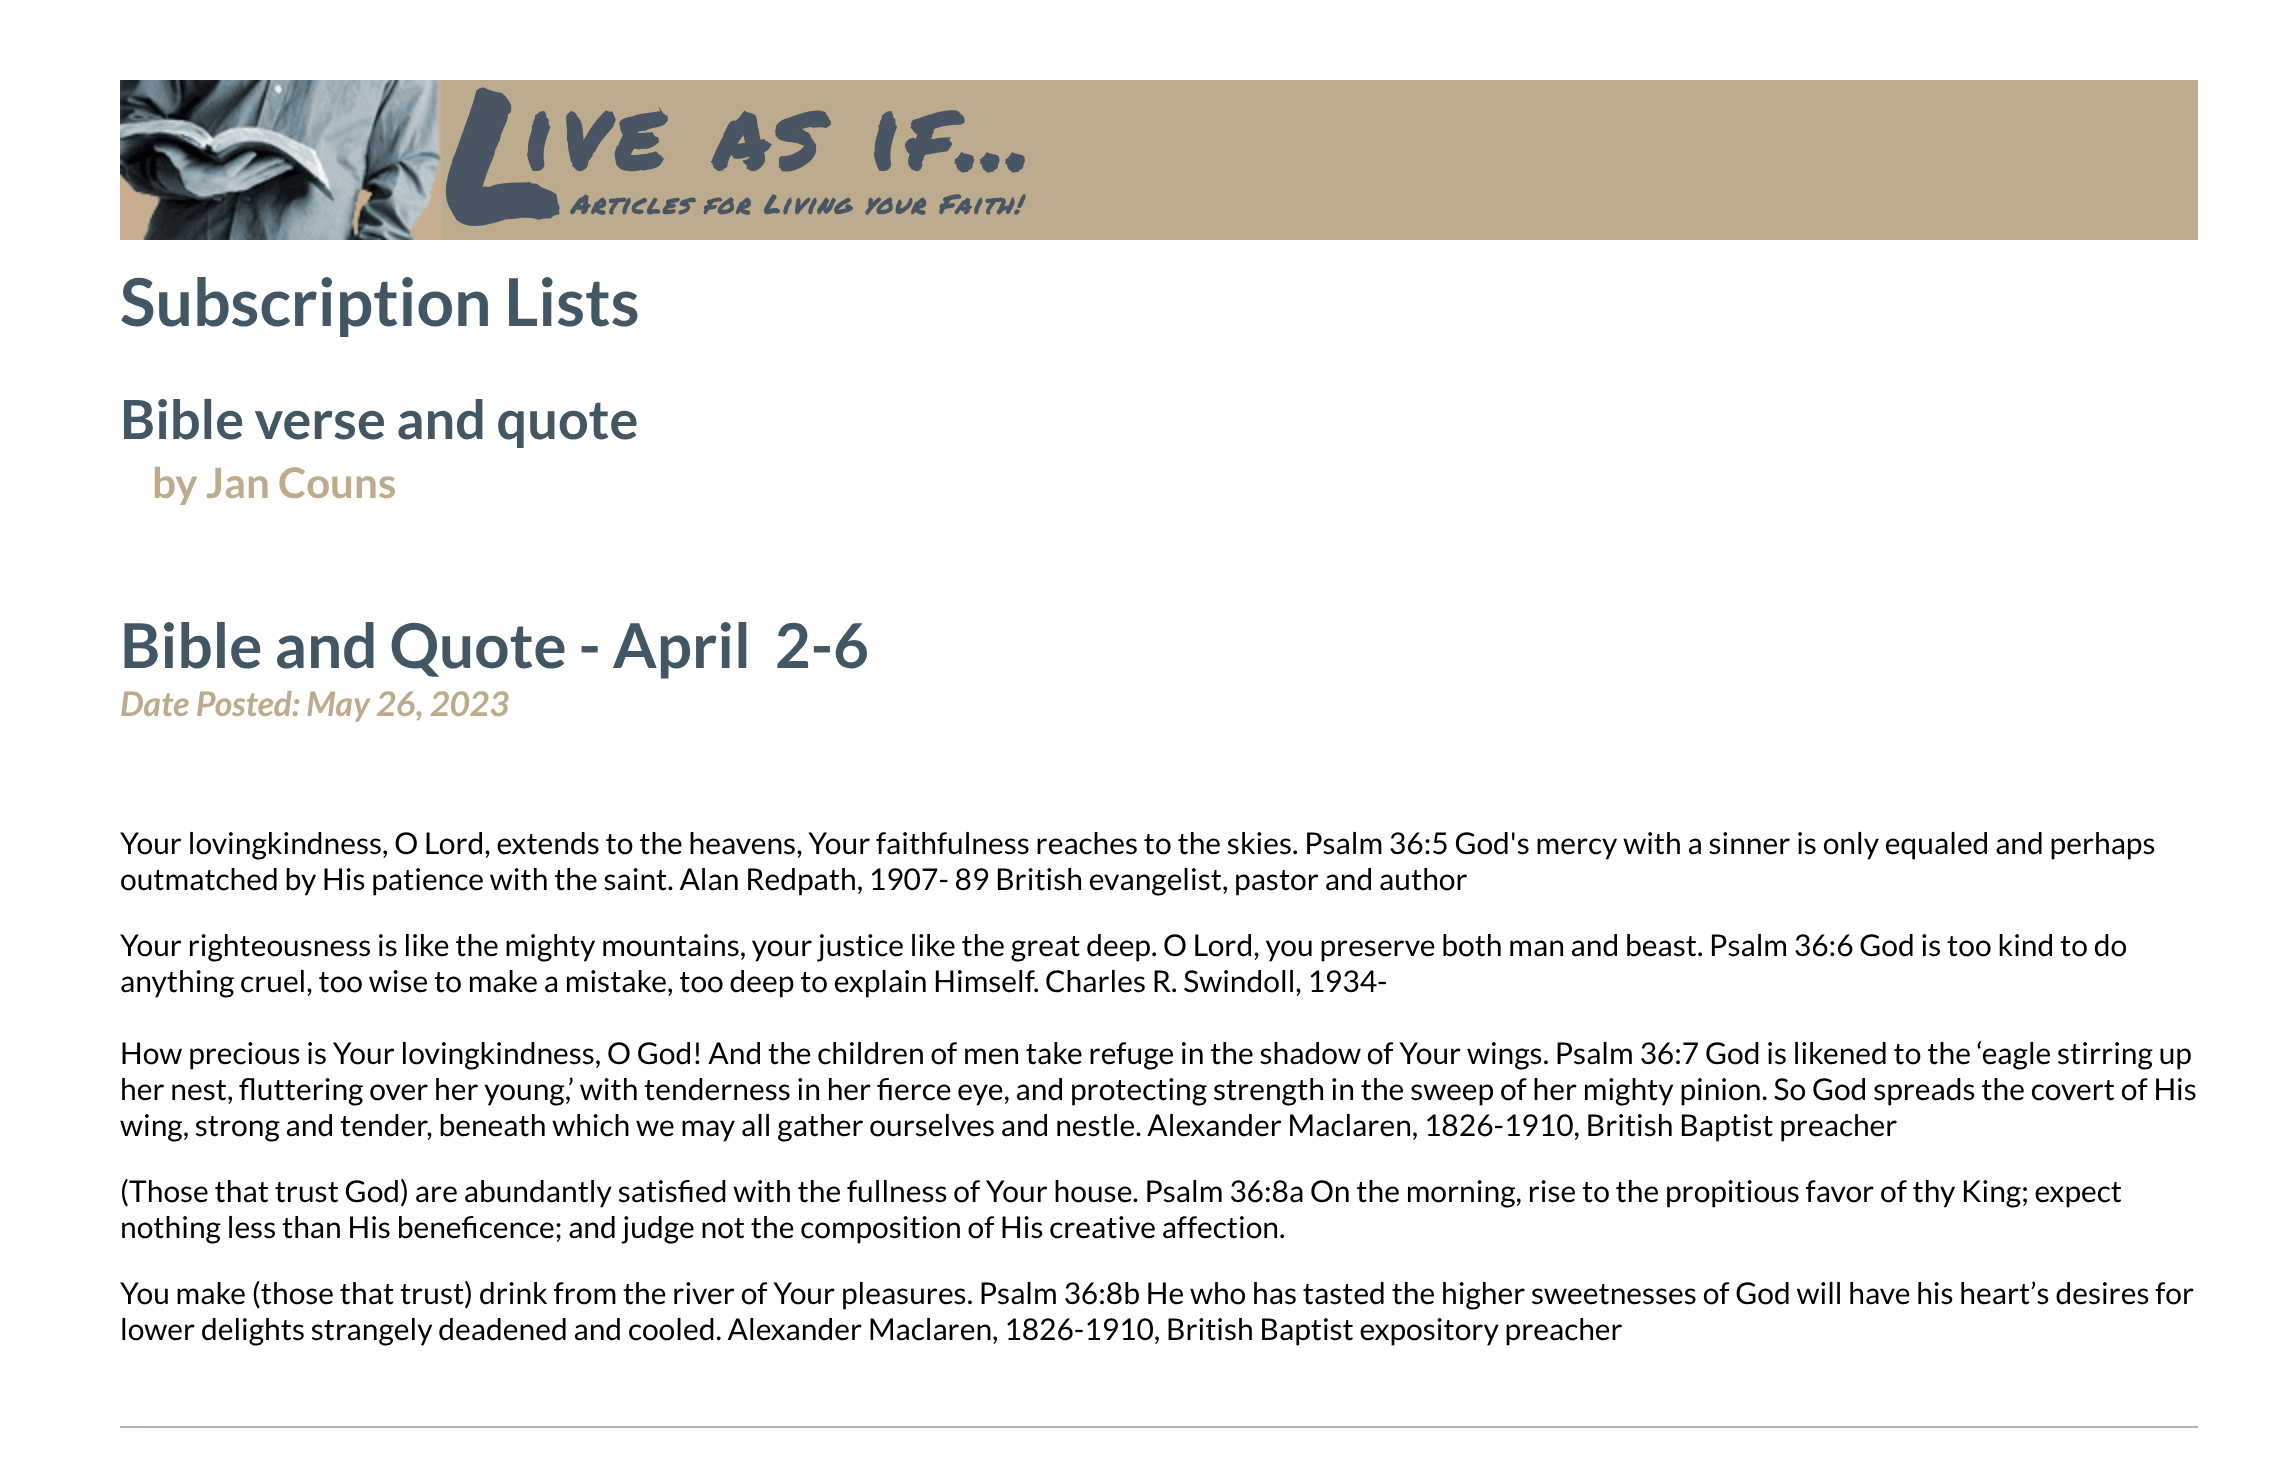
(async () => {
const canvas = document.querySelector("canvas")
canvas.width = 2277
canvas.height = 1466
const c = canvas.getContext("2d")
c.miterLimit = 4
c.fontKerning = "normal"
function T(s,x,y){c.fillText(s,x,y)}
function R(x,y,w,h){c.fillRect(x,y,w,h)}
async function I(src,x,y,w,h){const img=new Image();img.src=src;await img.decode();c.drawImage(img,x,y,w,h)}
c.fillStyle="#fff"
R(0,0,2277,1466)
c.fillStyle="#bcab8d"
R(442,80,1756,160)
await I("1.png",120,80,322,160)
c.font="bold 180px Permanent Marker"
c.fillStyle="#495563"
T("L",444,224)
c.letterSpacing="8px"
c.font="bold 94px Permanent Marker"
T("ive as if…",522,170)
c.letterSpacing="2px"
c.font="italic bold 26px Permanent Marker"
T("Articles for Living your Faith!",570,214)
c.letterSpacing="0px"
c.font="bold 66px Lato"
c.fillStyle="#425664"
T("Subscription Lists",120,326)
c.font="bold 54px Lato"
T("Bible verse and quote",120,439)
c.font="bold 42px Lato"
c.fillStyle="#bcab8d"
T("by Jan Couns",152,498)
c.font="bold 62px Lato"
c.fillStyle="#425664"
T("Bible and Quote - April  2-6",120,668)
c.font="italic bold 34px Lato"
c.fillStyle="#bcab8d"
T("Date Posted: May 26, 2023",120,716)
c.font="30px Lato"
c.fillStyle="#000"
T("Your lovingkindness, O Lord, extends to the heavens, Your faithfulness reaches to the skies. Psalm 36:5 God's mercy with a sinner is only equaled and perhaps",120,854)
T("outmatched by His patience with the saint. Alan Redpath, 1907- 89 British evangelist, pastor and author",120,890)
T("Your righteousness is like the mighty mountains, your justice like the great deep. O Lord, you preserve both man and beast. Psalm 36:6 God is too kind to do",120,956)
T("anything cruel, too wise to make a mistake, too deep to explain Himself. Charles R. Swindoll, 1934-",120,992)
T("How precious is Your lovingkindness, O God! And the children of men take refuge in the shadow of Your wings. Psalm 36:7 God is likened to the ‘eagle stirring up",120,1064)
T("her nest, fluttering over her young,’ with tenderness in her fierce eye, and protecting strength in the sweep of her mighty pinion. So God spreads the covert of His",120,1100)
T("wing, strong and tender, beneath which we may all gather ourselves and nestle. Alexander Maclaren, 1826-1910, British Baptist preacher",120,1136)
T("(Those that trust God) are abundantly satisfied with the fullness of Your house. Psalm 36:8a On the morning, rise to the propitious favor of thy King; expect",120,1202)
T("nothing less than His beneficence; and judge not the composition of His creative affection.",120,1238)
T("You make (those that trust) drink from the river of Your pleasures. Psalm 36:8b He who has tasted the higher sweetnesses of God will have his heart’s desires for",120,1304)
T("lower delights strangely deadened and cooled. Alexander Maclaren, 1826-1910, British Baptist expository preacher",120,1340)
c.fillStyle="#abb5c0"
R(120,1426,2078,2)
})()
